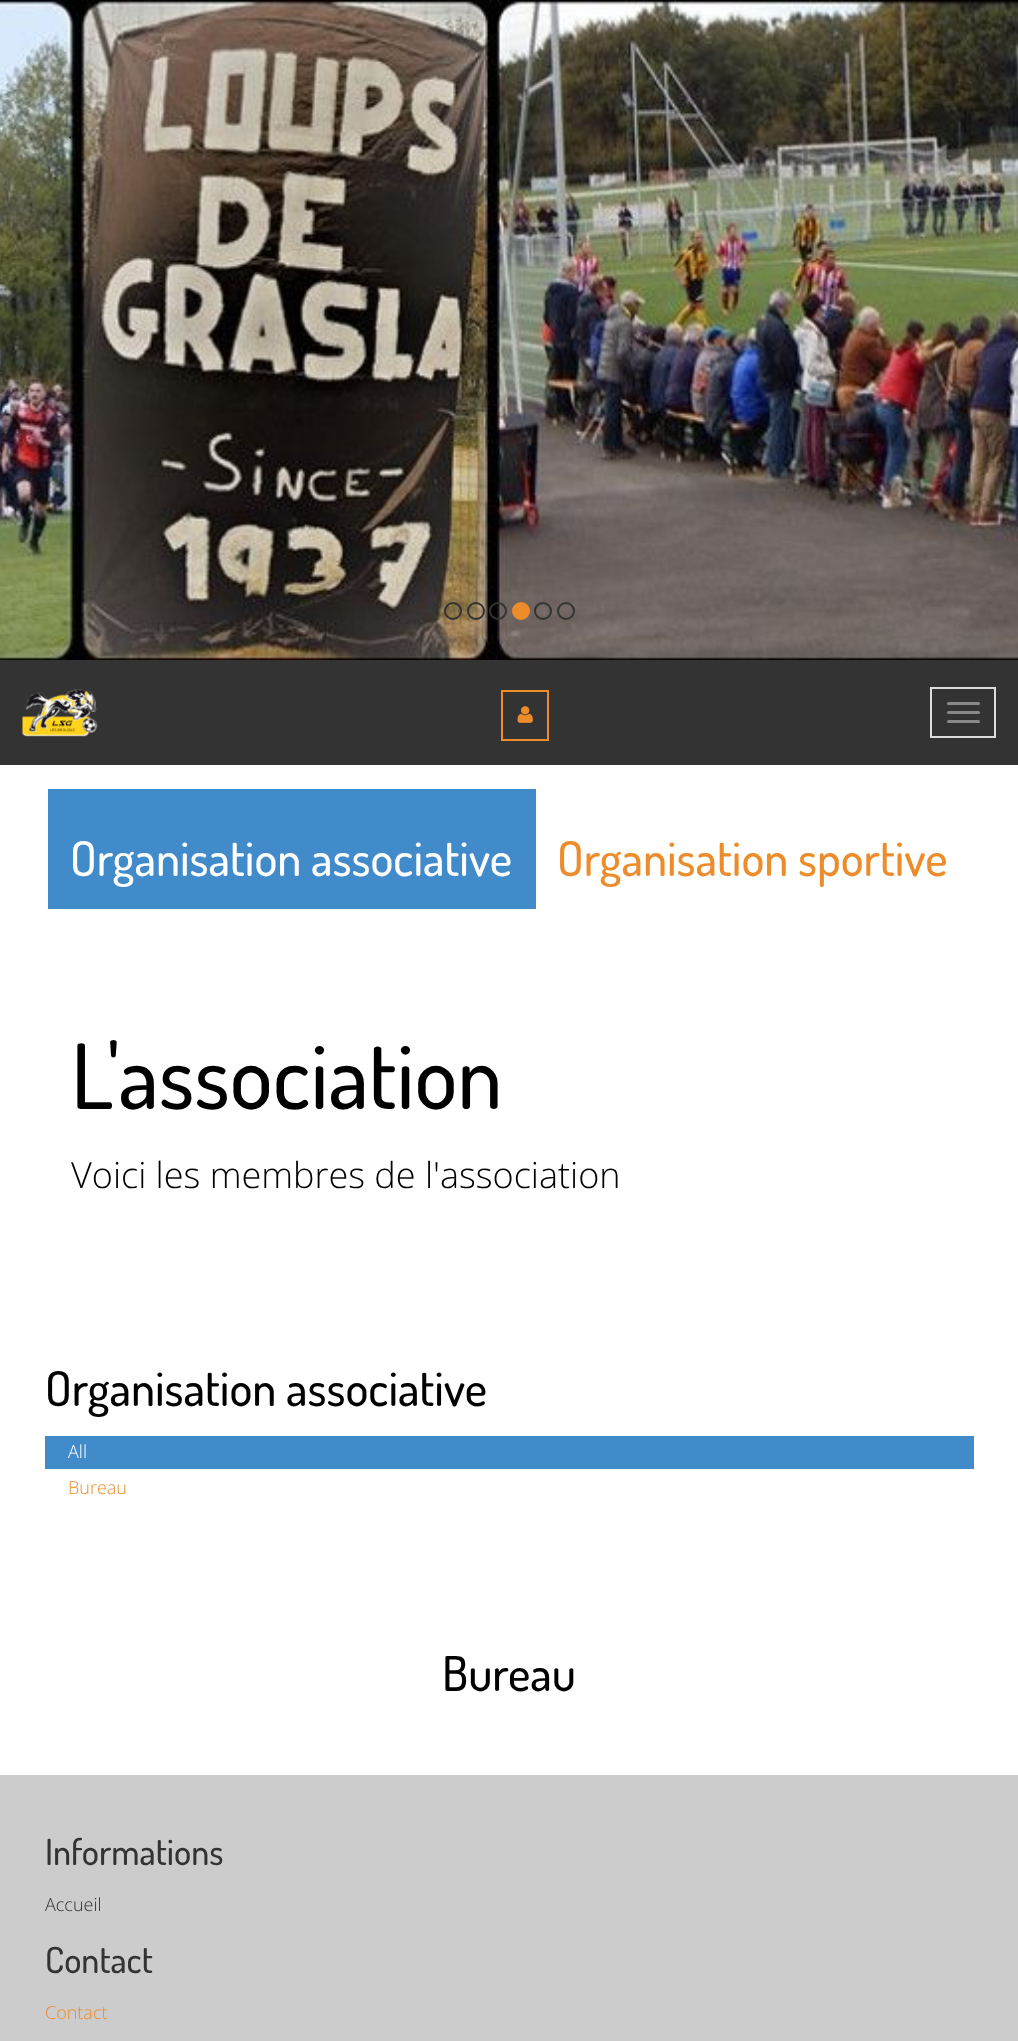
(async () => {
const canvas = document.querySelector("canvas")
canvas.width = 1018
canvas.height = 2041
const c = canvas.getContext("2d")
c.miterLimit = 4
c.fontKerning = "normal"
function T(s,x,y){c.fillText(s,x,y)}
function R(x,y,w,h){c.fillRect(x,y,w,h)}
function Q(x,y,w,h,r){c.beginPath();c.roundRect(x,y,w,h,r);c.fill()}
async function I(src,x,y,w,h){const img=new Image();img.src=src;await img.decode();c.drawImage(img,x,y,w,h)}
c.fillStyle="#fff"
R(0,0,1018,2041)
await I("1.png",0,0,1018,660)
c.font="300 18px Open Sans"
c.fillStyle="#000"
T(".",68,138)
c.beginPath()
c.arc(453,611,8,0,7)
c.strokeStyle="#333"
c.lineWidth=2
c.stroke()
c.beginPath()
c.arc(476,611,8,0,7)
c.stroke()
c.beginPath()
c.arc(498,611,8,0,7)
c.stroke()
c.fillStyle="#ed8c2b"
c.beginPath()
c.arc(521,611,8,0,7)
c.fill()
c.strokeStyle="#ed8c2b"
c.stroke()
c.beginPath()
c.arc(543,611,8,0,7)
c.strokeStyle="#333"
c.stroke()
c.beginPath()
c.arc(566,611,8,0,7)
c.stroke()
c.fillStyle="#333"
R(0,660,1018,105)
await I("2.png",22,689,76,48)
c.strokeStyle="#ed8c2b"
c.strokeRect(502,691,46,49)
await I("3.png",517,706,16,17)
c.strokeStyle="#ddd"
c.strokeRect(931,688,64,49)
c.fillStyle="#888"
Q(947,702,33,3,1.5)
Q(947,711,33,3,1.5)
Q(947,720,33,3,1.5)
c.fillStyle="#428bca"
R(48,789,488,120)
c.font="500 48px Dosis"
c.fillStyle="#fff"
T("Organisation associative",70,876)
c.fillStyle="#ed8c2b"
T("Organisation sportive",557,876)
c.font="500 90px Dosis"
c.fillStyle="#000"
T("L'association",71,1109)
c.font="300 36px Open Sans"
T("Voici les membres de l'association",71,1188)
c.font="500 48px Dosis"
T("Organisation associative",45,1406)
c.fillStyle="#428bca"
R(45,1436,929,33)
c.font="300 18px Open Sans"
c.fillStyle="#fff"
T("All",68,1458)
c.fillStyle="#ed8c2b"
T("Bureau",68,1494)
c.font="500 48px Dosis"
c.fillStyle="#000"
T("Bureau",442,1691)
c.fillStyle="#ccc"
R(0,1775,1018,266)
c.font="500 36px Dosis"
c.fillStyle="#333"
T("Informations",45,1865)
c.font="300 18px Open Sans"
T("Accueil",45,1911)
c.font="500 36px Dosis"
T("Contact",45,1973)
c.font="300 18px Open Sans"
c.fillStyle="#ed8c2b"
T("Contact",45,2019)
})()
